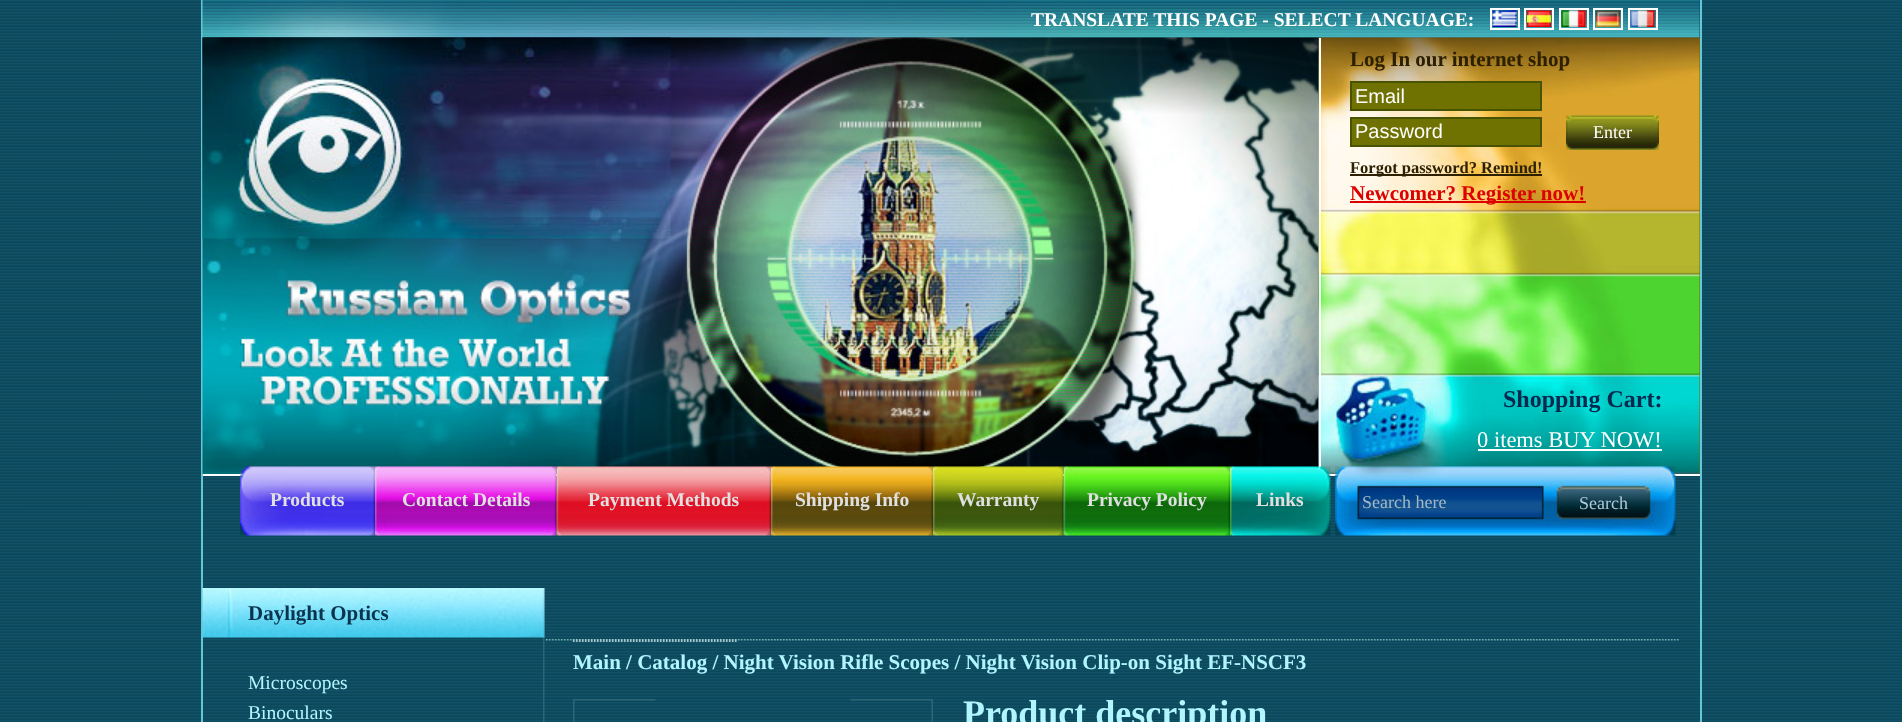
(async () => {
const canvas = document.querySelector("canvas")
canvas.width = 1902
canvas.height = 722
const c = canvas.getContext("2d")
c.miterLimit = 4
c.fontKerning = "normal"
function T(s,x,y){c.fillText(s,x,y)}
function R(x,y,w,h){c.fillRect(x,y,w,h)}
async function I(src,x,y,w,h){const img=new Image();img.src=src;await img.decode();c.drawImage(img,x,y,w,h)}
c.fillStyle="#fff"
R(0,0,1902,722)
await I("1.png",0,0,1902,722)
c.fillStyle="#64c6d7"
R(1700,0,2,722)
R(201,0,2,722)
await I("2.png",202,0,1498,38)
c.font="bold 19.5px Liberation Serif"
c.fillStyle="#fff"
T("TRANSLATE THIS PAGE - SELECT LANGUAGE:",1031,26)
c.strokeStyle="#fff"
c.lineWidth=2
c.strokeRect(1491,9,28,20)
c.strokeRect(1525,9,28,20)
c.strokeRect(1560,9,28,20)
c.strokeRect(1594,9,28,20)
c.strokeRect(1629,9,28,20)
await I("3.png",1492,10,25,17)
await I("4.png",1527,10,24,17)
await I("5.png",1561,10,25,17)
await I("6.png",1596,10,24,17)
await I("7.png",1630,10,25,17)
await I("8.png",202,37,1117,437)
R(203,474,1497,2)
await I("9.png",202,37,469,202)
c.fillStyle="#6f7100"
R(1699,38,1,436)
await I("10.png",1318,37,382,437)
c.fillStyle="#fff"
R(1319,38,2,436)
c.font="bold 21px Liberation Serif"
c.fillStyle="#2d2001"
T("Log In our internet shop",1350,66)
c.fillStyle="#6f7100"
c.beginPath()
c.rect(1351,82,190,28)
c.fill()
c.strokeStyle="#475300"
c.stroke()
c.font="20px Liberation Sans"
c.fillStyle="#fff"
T("Email",1355,103)
c.fillStyle="#6f7100"
c.beginPath()
c.rect(1351,118,190,28)
c.fill()
c.stroke()
c.fillStyle="#fff"
T("Password",1355,138)
await I("11.png",1566,115,93,35)
c.font="18px Liberation Serif"
T("Enter",1593,138)
c.fillStyle="#2d2001"
R(1350,174,192,2)
c.font="bold 16.5px Liberation Serif"
T("Forgot password? Remind!",1350,173)
c.fillStyle="#d00"
R(1350,201,236,2)
c.font="bold 21px Liberation Serif"
T("Newcomer? Register now!",1350,200)
c.font="bold 24px Liberation Serif"
c.fillStyle="#05284f"
T("Shopping Cart:",1503,407)
c.font="22.5px Liberation Serif"
c.fillStyle="#fff"
T("0 items BUY NOW!",1477,447)
R(1478,449,184,2)
await I("12.png",240,466,135,70)
c.font="bold 19.5px Liberation Serif"
c.fillStyle="#dfe0df"
T("Products",270,506)
await I("13.png",375,466,182,70)
T("Contact Details",402,506)
await I("14.png",556,466,215,70)
T("Payment Methods",588,506)
await I("15.png",771,466,162,70)
T("Shipping Info",795,506)
await I("16.png",933,466,131,70)
T("Warranty",957,506)
await I("17.png",1063,466,167,70)
T("Privacy Policy",1087,506)
await I("18.png",1230,466,101,70)
T("Links",1256,506)
await I("19.png",1335,466,341,70)
c.font="18px Liberation Serif"
c.fillStyle="#a5b9c5"
T("Search here",1362,508)
c.fillStyle="#b1cad9"
T("Search",1579,509)
await I("20.png",543,588,2,134)
await I("21.png",202,588,343,50)
c.font="bold 21px Liberation Serif"
c.fillStyle="#0a334e"
T("Daylight Optics",248,620)
c.font="19.5px Liberation Serif"
c.fillStyle="#b1f6ff"
T("Microscopes",248,689)
T("Binoculars",248,719)
await I("22.png",546,639,1133,3)
c.font="bold 21px Liberation Serif"
T("Main / Catalog / Night Vision Rifle Scopes / Night Vision Clip-on Sight EF-NSCF3",573,669)
await I("23.png",573,699,360,23)
c.font="bold 36px Liberation Serif"
T("Product description",963,725)
})()
